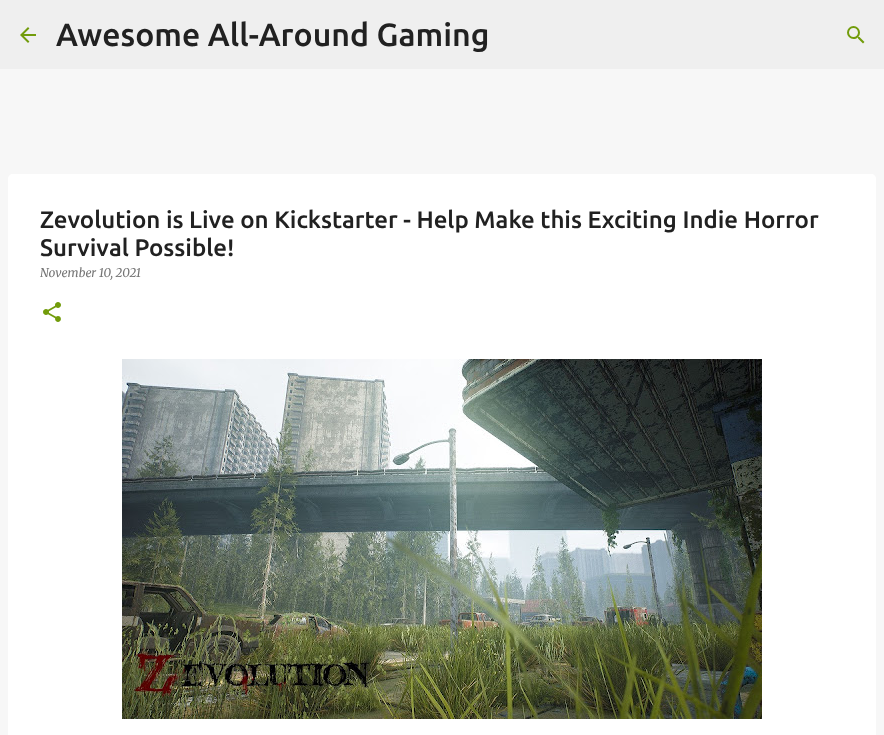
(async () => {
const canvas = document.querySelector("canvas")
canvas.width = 884
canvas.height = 735
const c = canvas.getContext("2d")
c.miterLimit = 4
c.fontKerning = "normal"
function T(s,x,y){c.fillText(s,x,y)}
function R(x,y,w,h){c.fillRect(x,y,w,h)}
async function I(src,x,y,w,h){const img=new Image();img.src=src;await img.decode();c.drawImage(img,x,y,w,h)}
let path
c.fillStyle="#f7f7f7"
R(0,0,884,735)
c.fillStyle="#efefef"
R(0,0,884,69)
await I("1.png",20,27,16,16)
c.font="500 32px Ubuntu"
c.fillStyle="#212121"
T("Awesome All-Around Gaming",56,46)
await I("2.png",847,26,18,18)
c.fillStyle="#fff"
path = new Path2D("M13 174h858c3 0 5 2 5 5v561h-868v-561c0-3 2-5 5-5z")
c.fill(path)
c.font="500 24px Ubuntu"
c.fillStyle="#212121"
T("Zevolution is Live on Kickstarter - Help Make this Exciting Indie Horror",40,228)
T("Survival Possible!",40,256)
c.font="italic 12px Merriweather"
c.fillStyle="#757575"
T("November 10, 2021",40,277)
await I("3.png",43,302,18,20)
await I("4.png",122,359,640,360)
})()
